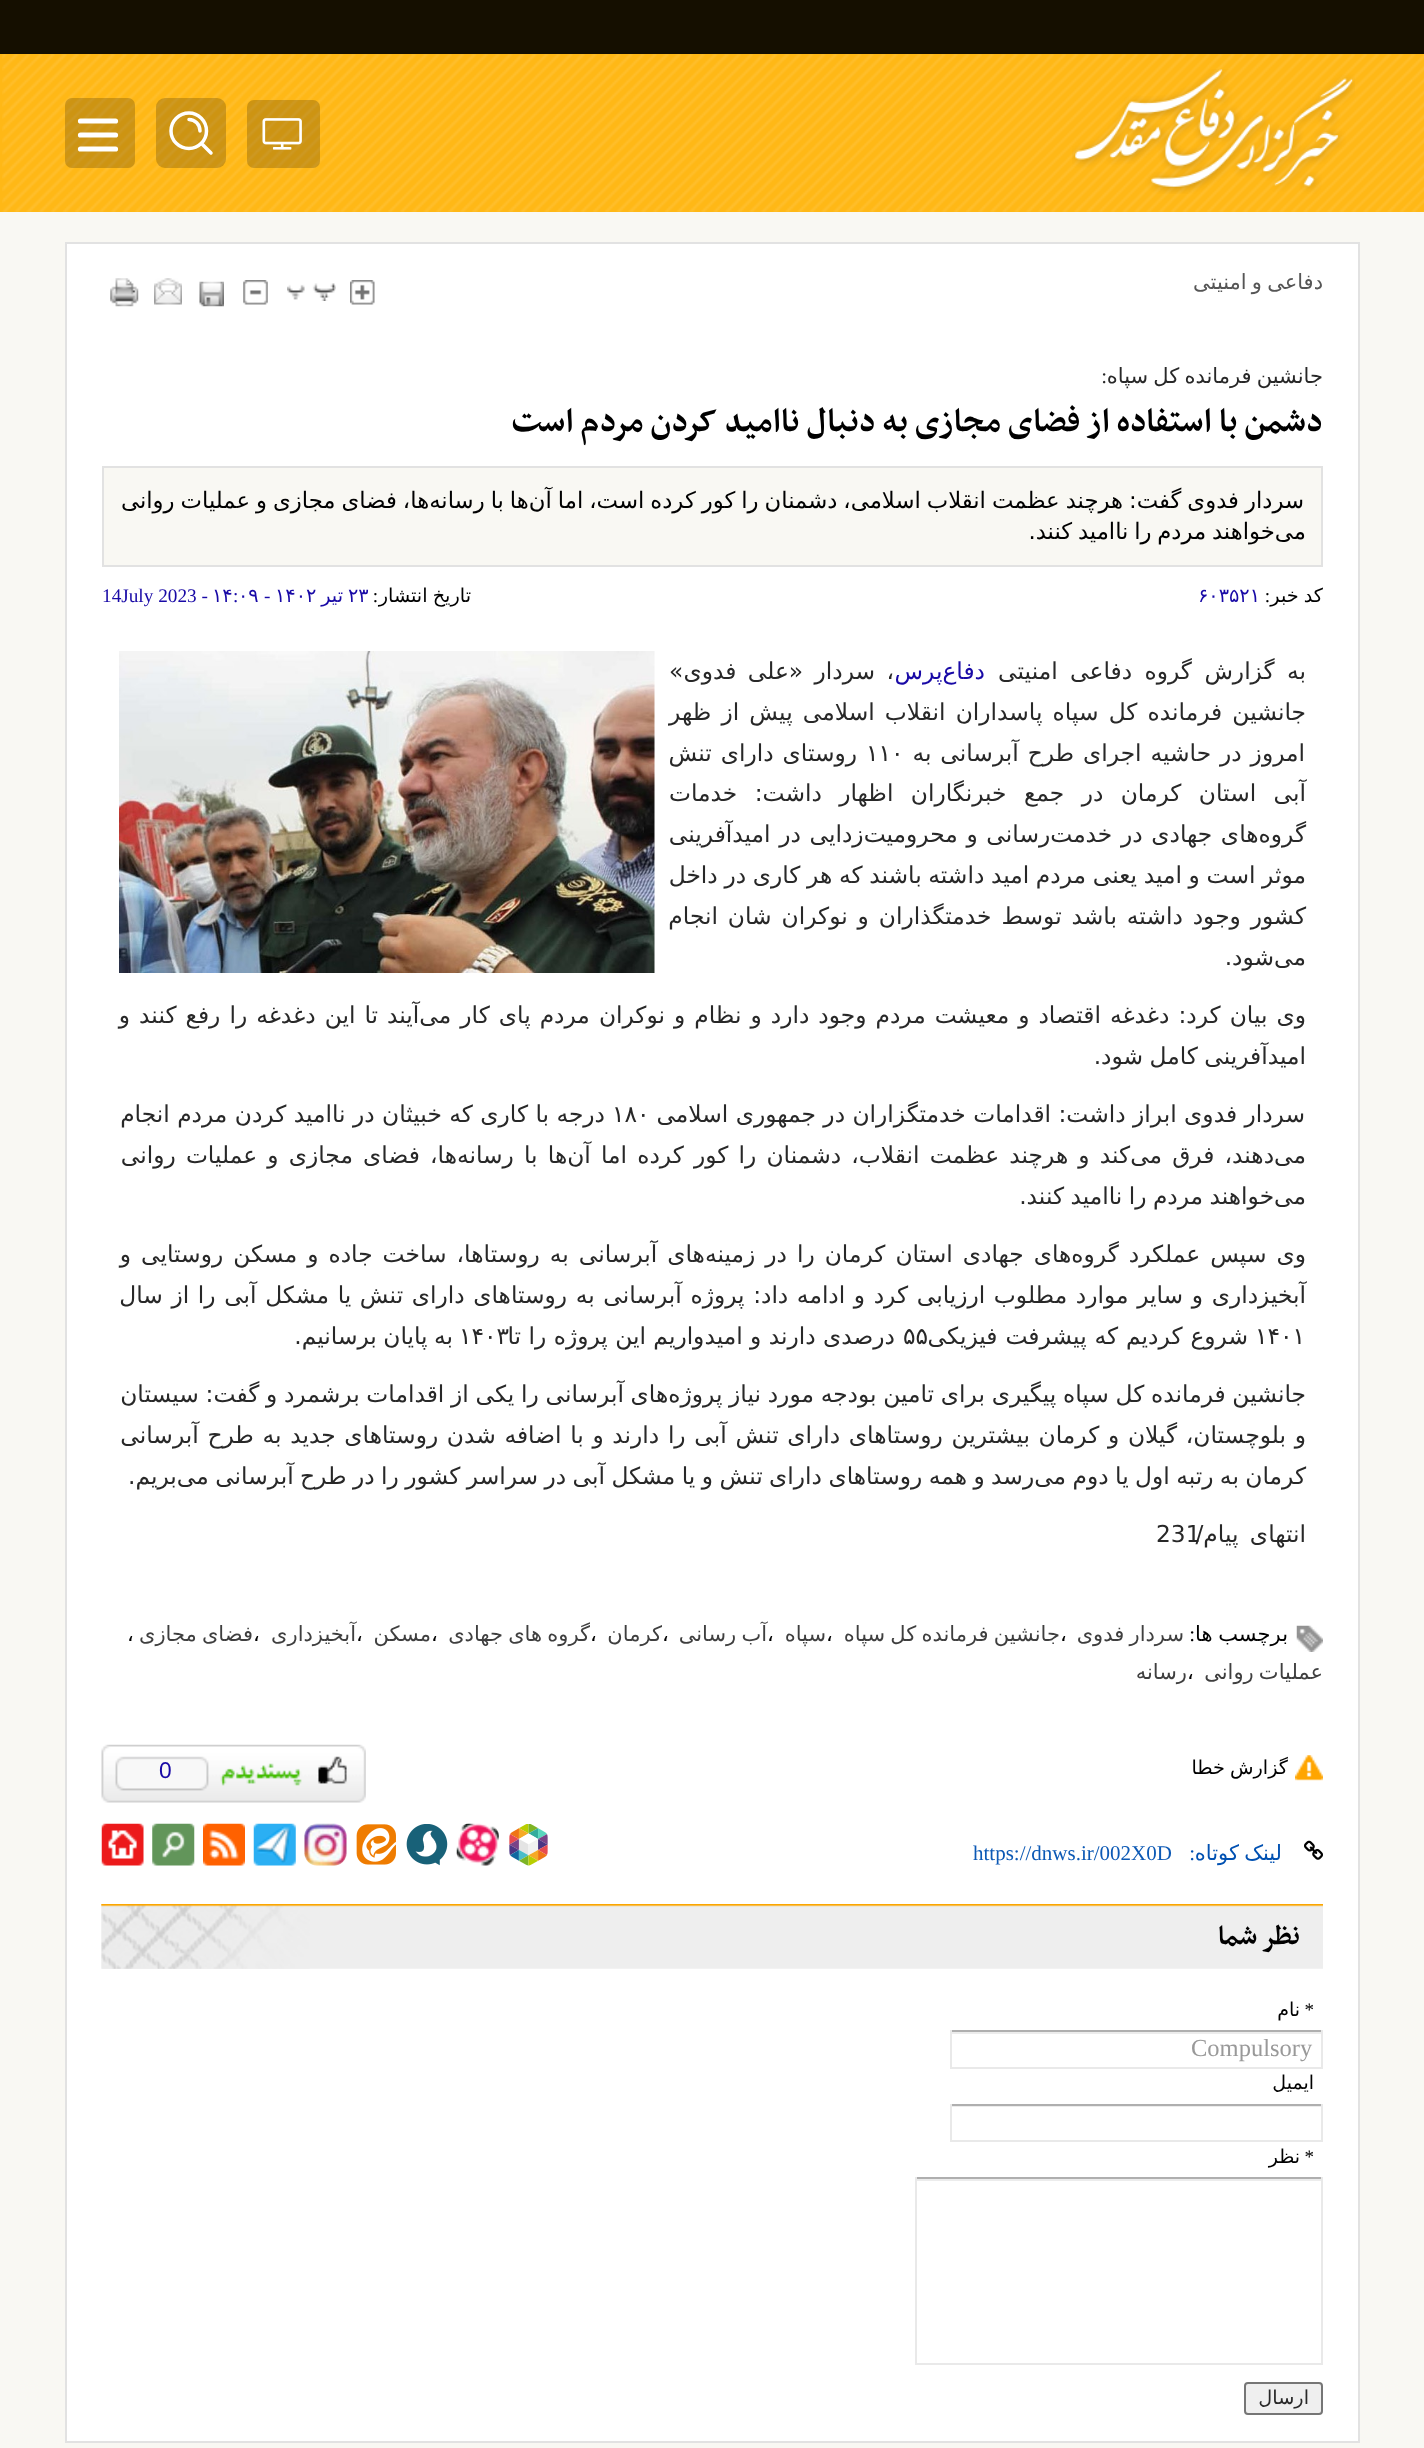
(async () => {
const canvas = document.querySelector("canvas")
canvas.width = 1424
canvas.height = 2448
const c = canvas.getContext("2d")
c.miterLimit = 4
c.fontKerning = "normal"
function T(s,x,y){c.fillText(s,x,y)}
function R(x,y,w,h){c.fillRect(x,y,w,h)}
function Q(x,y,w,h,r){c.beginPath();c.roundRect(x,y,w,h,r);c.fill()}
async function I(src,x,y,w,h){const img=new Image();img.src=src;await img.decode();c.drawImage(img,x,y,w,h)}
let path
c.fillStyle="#f9f8f3"
R(0,0,1424,2448)
c.fillStyle="#150f00"
R(0,0,1424,54)
c.fillStyle="#ffb816"
R(0,54,1424,158)
await I("1.png",2,54,1422,158)
await I("2.png",1072,69,283,125)
c.fillStyle="#04040433"
Q(247,100,73,68,7)
await I("3.png",262,118,40,32)
Q(156,98,70,70,9)
path = new Path2D("M211 153l-9.5-9.5m-12.5-24c6 0 11 5 11 11.5m6.5 0c0 9.5-8 17.5-17.5 17.5c-10 0-18-8-18-17.5c0-10 8-18 18-18c9.5 0 17.5 8 17.5 18z")
c.strokeStyle="#fff"
c.lineWidth=3.5
c.lineCap="round"
c.lineJoin="round"
c.stroke(path)
Q(65,98,70,70,7)
path = new Path2D("M80.5 121h35m-35 14h35m-35 14h35")
c.lineWidth=5.2
c.lineJoin="miter"
c.stroke(path)
c.fillStyle="#fff"
c.beginPath()
c.rect(66,243,1293,2199)
c.fill()
c.strokeStyle="#e2e2e2"
c.lineWidth=2
c.stroke()
c.wordSpacing="-1.5px"
c.direction="rtl"
c.font="21px DejaVu Sans"
c.fillStyle="#565656"
T("دفاعی و امنیتی",1323,289)
await I("4.png",350,280,25,25)
await I("5.png",287,283,49,18)
await I("6.png",243,280,25,25)
await I("7.png",199,281,25,26)
await I("8.png",154,278,28,27)
await I("9.png",110,278,29,29)
c.fillStyle="#282828"
T("جانشین فرمانده کل سپاه",1323,383)
c.wordSpacing="0px"
c.font="21px Liberation Serif"
T(":",1107,383)
c.font="bold 38.5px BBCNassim"
c.fillStyle="#000"
T("دشمن با استفاده از فضای مجازی به دنبال ناامید کردن مردم است",1323,431)
c.fillStyle="#f9f8f3"
c.beginPath()
c.rect(103,467,1219,99)
c.fill()
c.stroke()
c.wordSpacing="-1.25px"
c.font="22.75px DejaVu Sans"
c.fillStyle="#000"
T("سردار فدوی گفت: هرچند عظمت انقلاب اسلامی، دشمنان را کور کرده است، اما آن‌ها با رسانه‌ها، فضای مجازی و عملیات روانی",1304,508)
c.wordSpacing="-1.5px"
T("می‌خواهند مردم را ناامید کنند.",1306,539)
c.wordSpacing="-1px"
c.font="19.25px DejaVu Sans"
T("کد خبر",1323,602)
c.wordSpacing="0px"
c.font="19.25px Liberation Serif"
T(":",1270,602)
c.direction="ltr"
c.font="19.25px DejaVu Sans"
c.fillStyle="#1809a6"
T("۶۰۳۵۲۱",1198,602)
c.wordSpacing="-1px"
c.direction="rtl"
c.fillStyle="#000"
T("تاریخ انتشار",471,602)
c.wordSpacing="0px"
c.font="19.25px Liberation Serif"
T(":",378,602)
c.direction="ltr"
c.font="19.25px DejaVu Sans"
c.fillStyle="#1809a6"
T("۲۳",348,602)
c.direction="rtl"
T("تير",343,602)
c.direction="ltr"
T("۱۴۰۲",275,602)
c.font="19.25px Liberation Serif"
T("-",264,602)
c.font="19.25px DejaVu Sans"
T("۰۹",238,602)
c.font="19.25px Liberation Serif"
T(":",233,602)
c.font="19.25px DejaVu Sans"
T("۱۴",212,602)
c.font="19.25px Liberation Serif"
T("14July 2023 -",102,602)
c.wordSpacing="5px"
c.direction="rtl"
c.font="23.33px DejaVu Sans"
c.fillStyle="#282828"
T("به گزارش گروه دفاعی امنیتی",1306,679)
c.wordSpacing="0px"
c.fillStyle="#1809a6"
T("دفاع‌پرس",985,679)
c.wordSpacing="4px"
c.fillStyle="#282828"
T("، سردار «علی فدوی»",894,679)
await I("10.png",119,651,536,322)
c.wordSpacing="2.75px"
T("جانشین فرمانده کل سپاه پاسداران انقلاب اسلامی پیش از ظهر",1306,720)
c.wordSpacing="1.5px"
T("امروز در حاشیه اجرای طرح آبرسانی به",1305,761)
c.wordSpacing="0px"
c.direction="ltr"
T("۱۱۰",866,761)
c.wordSpacing="1.5px"
c.direction="rtl"
T("روستای دارای تنش",857,761)
c.wordSpacing="10px"
T("آبی استان کرمان در جمع خبرنگاران اظهار داشت: خدمات",1306,801)
c.wordSpacing="1.25px"
T("گروه‌های جهادی در خدمت‌رسانی و محرومیت‌زدایی در امیدآفرینی",1306,842)
c.wordSpacing="-0.75px"
T("موثر است و امید یعنی مردم امید داشته باشند که هر کاری در داخل",1306,883)
c.wordSpacing="2.5px"
T("کشور وجود داشته باشد توسط خدمتگذاران و نوکران شان انجام",1306,924)
c.wordSpacing="0px"
T("می‌شود.",1306,965)
c.wordSpacing="1.6px"
T("وی بیان کرد: دغدغه اقتصاد و معیشت مردم وجود دارد و نظام و نوکران مردم پای کار می‌آیند تا این دغدغه را رفع کنند و",1306,1023)
c.wordSpacing="-1px"
T("امیدآفرینی کامل شود.",1306,1064)
c.wordSpacing="0px"
T("سردار فدوی ابراز داشت: اقدامات خدمتگزاران در جمهوری اسلامی",1305,1122)
c.direction="ltr"
T("۱۸۰",612,1122)
c.direction="rtl"
T("درجه با کاری که خبیثان در ناامید کردن مردم انجام",605,1122)
c.wordSpacing="2.75px"
T("می‌دهند، فرق می‌کند و هرچند عظمت انقلاب، دشمنان را کور کرده اما آن‌ها با رسانه‌ها، فضای مجازی و عملیات روانی",1306,1163)
c.wordSpacing="-1px"
T("می‌خواهند مردم را ناامید کنند.",1306,1204)
c.wordSpacing="2.6px"
T("وی سپس عملکرد گروه‌های جهادی استان کرمان را در زمینه‌های آبرسانی به روستاها، ساخت جاده و مسکن روستایی و",1306,1262)
c.wordSpacing="1.2px"
T("آبخیزداری و سایر موارد مطلوب ارزیابی کرد و ادامه داد: پروژه آبرسانی به روستا‌های دارای تنش یا مشکل آبی را از سال",1306,1303)
c.wordSpacing="0px"
c.direction="ltr"
T("۱۴۰۱",1255,1344)
c.wordSpacing="0.5px"
c.direction="rtl"
T("شروع کردیم که پیشرفت فیزیکی",1248,1344)
c.wordSpacing="0px"
c.direction="ltr"
T("۵۵",903,1344)
c.direction="rtl"
T("درصدی دارند و امیدواریم این پروژه را تا",895,1344)
c.direction="ltr"
T("۱۴۰۳",459,1344)
c.wordSpacing="-1px"
c.direction="rtl"
T("به پایان برسانیم.",453,1344)
c.wordSpacing="-0.7px"
T("جانشین فرمانده کل سپاه پیگیری برای تامین بودجه مورد نیاز پروژه‌های آبرسانی را یکی از اقدامات برشمرد و گفت: سیستان",1306,1402)
c.wordSpacing="1.25px"
T("و بلوچستان، گیلان و کرمان بیشترین روستا‌های دارای تنش آبی را دارند و با اضافه شدن روستا‌های جدید به طرح آبرسانی",1306,1443)
c.wordSpacing="-1px"
T("کرمان به رتبه اول یا دوم می‌رسد و همه روستا‌های دارای تنش و یا مشکل آبی در سراسر کشور را در طرح آبرسانی می‌بریم.",1306,1484)
c.wordSpacing="0px"
c.direction="ltr"
T("231",1156,1542)
c.wordSpacing="4px"
c.direction="rtl"
T("انتهای پیام/",1306,1542)
await I("11.png",1296,1625,27,27)
c.wordSpacing="-1px"
c.font="21px DejaVu Sans"
c.fillStyle="#000"
T("برچسب ها",1288,1641)
c.wordSpacing="0px"
c.font="21px Liberation Serif"
T(":",1195,1641)
c.wordSpacing="-1.5px"
c.font="21px DejaVu Sans"
c.fillStyle="#3f3f3f"
T("سردار فدوی",1184,1641)
c.wordSpacing="0px"
c.direction="ltr"
c.fillStyle="#000"
T("،",1060,1641)
c.wordSpacing="-1.5px"
c.direction="rtl"
c.fillStyle="#3f3f3f"
T("جانشین فرمانده کل سپاه",1060,1641)
c.wordSpacing="0px"
c.direction="ltr"
c.fillStyle="#000"
T("،",826,1641)
c.direction="rtl"
c.fillStyle="#3f3f3f"
T("سپاه",826,1641)
c.direction="ltr"
c.fillStyle="#000"
T("،",767,1641)
c.wordSpacing="-1.5px"
c.direction="rtl"
c.fillStyle="#3f3f3f"
T("آب رسانی",767,1641)
c.wordSpacing="0px"
c.direction="ltr"
c.fillStyle="#000"
T("،",662,1641)
c.direction="rtl"
c.fillStyle="#3f3f3f"
T("کرمان",662,1641)
c.direction="ltr"
c.fillStyle="#000"
T("،",590,1641)
c.wordSpacing="-1.5px"
c.direction="rtl"
c.fillStyle="#3f3f3f"
T("گروه های جهادی",590,1641)
c.wordSpacing="0px"
c.direction="ltr"
c.fillStyle="#000"
T("،",431,1641)
c.direction="rtl"
c.fillStyle="#3f3f3f"
T("مسکن",431,1641)
c.direction="ltr"
c.fillStyle="#000"
T("،",356,1641)
c.direction="rtl"
c.fillStyle="#3f3f3f"
T("آبخیزداری",356,1641)
c.direction="ltr"
c.fillStyle="#000"
T("،",253,1641)
c.wordSpacing="-1.5px"
c.direction="rtl"
c.fillStyle="#3f3f3f"
T("فضای مجازی",253,1641)
c.wordSpacing="0px"
c.direction="ltr"
c.fillStyle="#000"
T("،",127,1641)
c.wordSpacing="-1.5px"
c.direction="rtl"
c.fillStyle="#3f3f3f"
T("عملیات روانی",1323,1679)
c.wordSpacing="0px"
c.direction="ltr"
c.fillStyle="#000"
T("،",1187,1679)
c.direction="rtl"
c.fillStyle="#3f3f3f"
T("رسانه",1187,1679)
await I("12.png",1295,1755,28,26)
c.wordSpacing="-1px"
c.font="19.25px DejaVu Sans"
c.fillStyle="#000"
T("گزارش خطا",1288,1774)
await I("13.png",101,1744,265,59)
c.wordSpacing="0px"
c.direction="ltr"
c.font="22.75px Liberation Sans"
c.fillStyle="#1809a6"
T("0",159,1778)
await I("14.png",1304,1840,19,20)
c.wordSpacing="-1.5px"
c.direction="rtl"
c.font="21px DejaVu Sans"
c.fillStyle="#0151b2"
T("لینک کوتاه",1282,1860)
c.wordSpacing="0px"
c.font="21px Liberation Serif"
T(":",1195,1860)
c.direction="ltr"
c.fillStyle="#0c59b5"
T("https://dnws.ir/002X0D",973,1860)
await I("15.png",509,1824,39,42)
await I("16.png",456,1823,43,43)
await I("17.png",406,1824,42,42)
await I("18.png",356,1824,40,41)
await I("19.png",304,1823,43,43)
await I("20.png",253,1823,43,43)
await I("21.png",203,1823,42,43)
await I("22.png",152,1823,43,43)
await I("23.png",101,1823,43,43)
await I("24.png",101,1904,1222,65)
c.direction="rtl"
c.font="bold 31.5px BBCNassim"
c.fillStyle="#000"
T("نظر شما",1300,1944)
c.font="19px Liberation Serif"
T("*",1314,2016)
c.font="19px DejaVu Sans"
T("نام",1300,2016)
c.fillStyle="#ececec"
R(952,2032,369,2)
c.fillStyle="#afafaf"
R(950,2030,373,2)
c.fillStyle="#e9e9e9"
R(1321,2030,2,39)
R(950,2067,373,2)
R(950,2030,2,39)
c.direction="ltr"
c.font="24.5px Liberation Serif"
c.fillStyle="#999"
T("Compulsory",1191,2056)
c.direction="rtl"
c.font="19px DejaVu Sans"
c.fillStyle="#000"
T("ایمیل",1314,2089)
c.fillStyle="#ececec"
R(952,2106,369,1)
c.fillStyle="#afafaf"
R(950,2104,373,2)
c.fillStyle="#e9e9e9"
R(1321,2104,2,38)
R(950,2140,373,2)
R(950,2104,2,38)
c.font="19px Liberation Serif"
c.fillStyle="#000"
T("*",1314,2163)
c.font="19px DejaVu Sans"
T("نظر",1300,2163)
c.fillStyle="#ececec"
R(917,2179,404,2)
c.fillStyle="#afafaf"
R(915,2177,408,2)
c.fillStyle="#e9e9e9"
R(1321,2177,2,187)
R(915,2363,408,2)
R(915,2177,2,187)
c.fillStyle="#efefef"
c.beginPath()
c.roundRect(1245,2383,77,31,3)
c.fill()
c.strokeStyle="#767676"
c.stroke()
c.font="19.25px DejaVu Sans"
c.fillStyle="#282828"
T("ارسال",1309,2404)
})()
